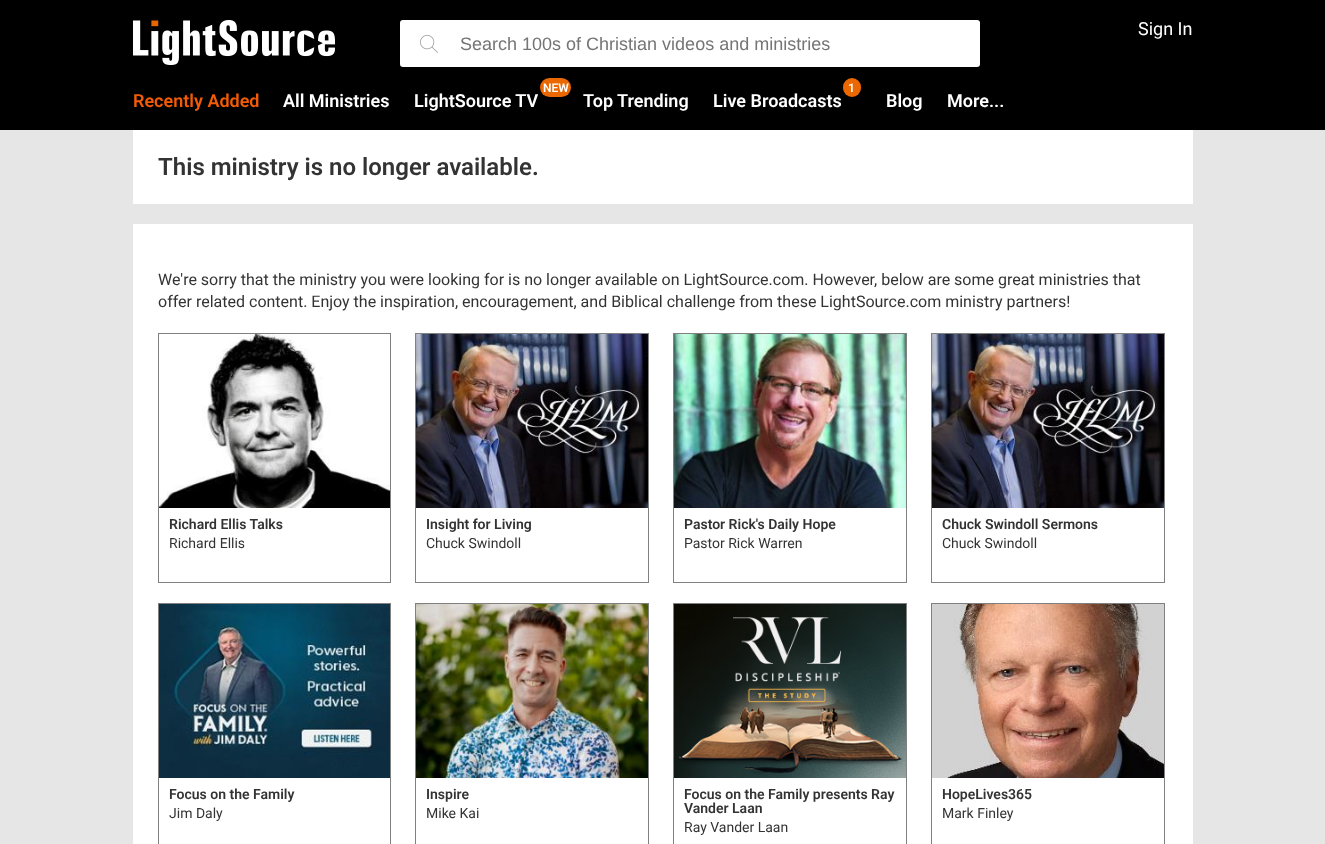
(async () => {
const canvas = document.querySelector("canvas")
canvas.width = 1325
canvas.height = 844
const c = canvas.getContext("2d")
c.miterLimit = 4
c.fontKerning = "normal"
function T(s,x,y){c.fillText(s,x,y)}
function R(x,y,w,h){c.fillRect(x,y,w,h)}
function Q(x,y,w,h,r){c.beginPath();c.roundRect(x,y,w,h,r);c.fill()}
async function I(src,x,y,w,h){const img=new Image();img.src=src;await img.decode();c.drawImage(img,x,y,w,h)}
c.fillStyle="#e6e6e6"
R(0,0,1325,844)
c.fillStyle="#000"
R(0,0,1325,130)
await I("1.png",133,20,202,45)
c.font="18px Roboto"
c.fillStyle="#fff"
T("Sign In",1138,35)
Q(400,20,580,47,3)
await I("2.png",420,35,18,18)
c.font="18px Liberation Sans"
c.fillStyle="#757575"
T("Search 100s of Christian videos and ministries",460,50)
c.font="600 18px Roboto"
c.fillStyle="#f35b04"
T("Recently Added",133,107)
c.fillStyle="#fff"
T("All Ministries",283,107)
c.fillStyle="#eb6701"
Q(540,78,31,19,9.5)
c.font="600 12px Roboto"
c.fillStyle="#fff"
T("NEW",543,92)
c.font="600 18px Roboto"
T("LightSource TV",414,107)
T("Top Trending",583,107)
c.fillStyle="#eb6701"
Q(843,78,18,19,9)
c.font="600 12px Roboto"
c.fillStyle="#fff"
T("1",848,92)
c.font="600 18px Roboto"
T("Live Broadcasts",713,107)
T("Blog",886,107)
T("More...",947,107)
R(133,130,1060,74)
c.font="600 24px Roboto"
c.fillStyle="#333"
T("This ministry is no longer available.",158,175)
c.fillStyle="#fff"
R(133,224,1060,620)
c.font="16px Roboto"
c.fillStyle="#333"
T("We're sorry that the ministry you were looking for is no longer available on LightSource.com. However, below are some great ministries that",158,285)
T("offer related content. Enjoy the inspiration, encouragement, and Biblical challenge from these LightSource.com ministry partners!",158,307)
c.strokeStyle="#808080"
c.strokeRect(158.5,333.5,232,249)
await I("3.png",159,334,231,174)
c.font="600 14px Roboto"
T("Richard Ellis Talks",169,529)
c.font="14px Roboto"
T("Richard Ellis",169,548)
c.strokeRect(415.5,333.5,233,249)
await I("4.png",416,334,232,174)
c.font="600 14px Roboto"
T("Insight for Living",426,529)
c.font="14px Roboto"
T("Chuck Swindoll",426,548)
c.strokeRect(673.5,333.5,233,249)
await I("5.png",674,334,232,174)
c.font="600 14px Roboto"
T("Pastor Rick's Daily Hope",684,529)
c.font="14px Roboto"
T("Pastor Rick Warren",684,548)
c.strokeRect(931.5,333.5,233,249)
await I("4.png",932,334,232,174)
c.font="600 14px Roboto"
T("Chuck Swindoll Sermons",942,529)
c.font="14px Roboto"
T("Chuck Swindoll",942,548)
c.strokeRect(158.5,603.5,232,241)
await I("6.png",159,604,231,174)
c.font="600 14px Roboto"
T("Focus on the Family",169,799)
c.font="14px Roboto"
T("Jim Daly",169,818)
c.strokeRect(415.5,603.5,233,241)
await I("7.png",416,604,232,174)
c.font="600 14px Roboto"
T("Inspire",426,799)
c.font="14px Roboto"
T("Mike Kai",426,818)
c.strokeRect(673.5,603.5,233,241)
await I("8.png",674,604,232,174)
c.font="600 14px Roboto"
T("Focus on the Family presents Ray",684,799)
T("Vander Laan",684,813)
c.font="14px Roboto"
T("Ray Vander Laan",684,832)
c.strokeRect(931.5,603.5,233,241)
await I("9.png",932,604,232,174)
c.font="600 14px Roboto"
T("HopeLives365",942,799)
c.font="14px Roboto"
T("Mark Finley",942,818)
})()
